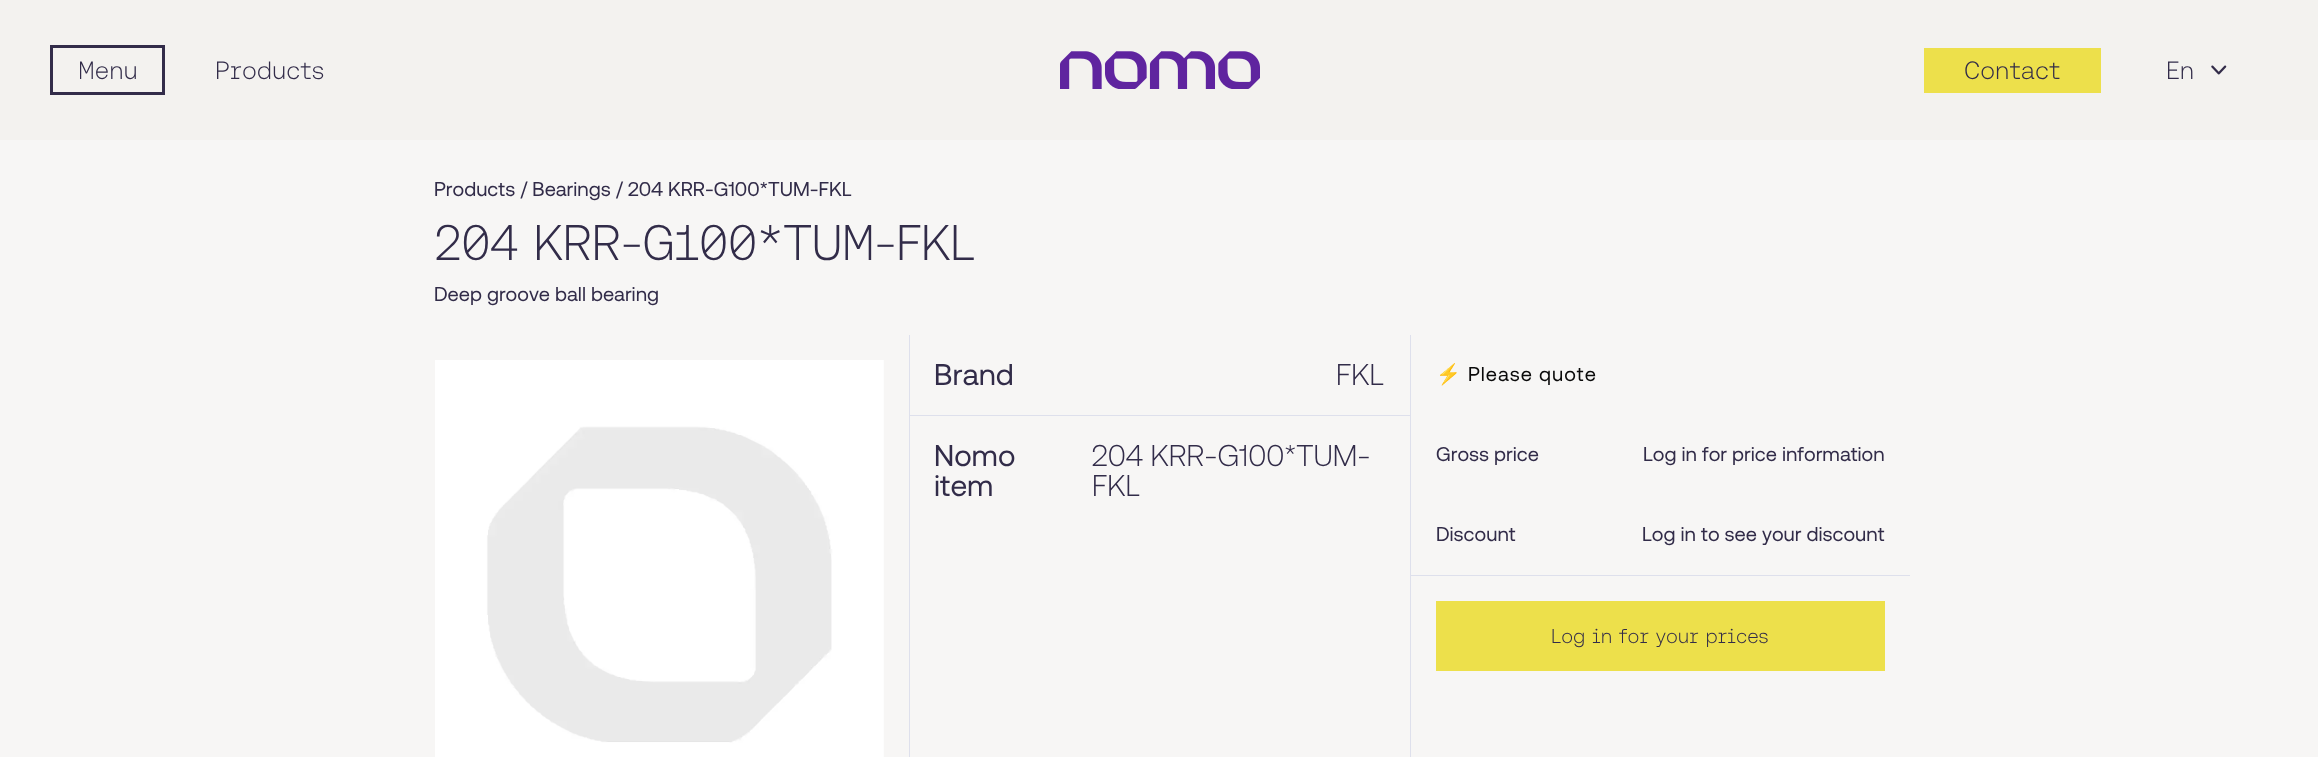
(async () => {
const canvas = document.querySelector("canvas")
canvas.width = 2318
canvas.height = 757
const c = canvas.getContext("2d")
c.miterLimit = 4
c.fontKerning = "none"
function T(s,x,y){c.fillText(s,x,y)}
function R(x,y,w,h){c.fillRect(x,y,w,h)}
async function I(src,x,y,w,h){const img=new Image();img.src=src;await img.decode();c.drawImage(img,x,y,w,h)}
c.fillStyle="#f7f6f5"
R(0,0,2318,757)
c.fillStyle="#f3f2ef"
R(0,0,2318,140)
c.strokeStyle="#322c49"
c.lineWidth=3
c.strokeRect(51.5,46.5,112,47)
c.font="300 25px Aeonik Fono"
c.fillStyle="#322c49"
T("Menu",78,79)
T("Products",215,79)
await I("1.png",1060,51,200,38)
c.fillStyle="#ede04b"
R(1924,48,177,45)
c.fillStyle="#322c49"
T("Contact",1964,79)
T("En",2166,79)
await I("2.png",2211,65,16,10)
c.font="20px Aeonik"
T("Products / Bearings / 204 KRR-G100*TUM-FKL",434,196)
c.letterSpacing="-1.25px"
c.font="300 50px Aeonik Fono"
T("204 KRR-G100*TUM-FKL",434,260)
c.letterSpacing="0px"
c.font="20px Aeonik"
T("Deep groove ball bearing",434,301)
c.fillStyle="#dee0ec"
R(909,335,1,422)
await I("3.png",435,360,449,397)
R(910,415,500,1)
c.font="30px Aeonik"
c.fillStyle="#322c49"
T("Brand",934,385)
c.font="300 30px Aeonik"
T("FKL",1336,385)
c.font="30px Aeonik"
T("Nomo",934,466)
T("item",934,496)
c.font="300 30px Aeonik"
T("204 KRR-G100*TUM-",1092,466)
T("FKL",1092,496)
c.fillStyle="#dee0ec"
R(1410,335,1,422)
c.letterSpacing="1px"
c.font="20px Noto Color Emoji"
c.fillStyle="#0a0a0a"
T("⚡",1436,381)
c.font="20px Aeonik"
T("Please quote",1468,381)
c.letterSpacing="0px"
c.fillStyle="#322c49"
T("Gross price",1436,461)
T("Log in for price information",1643,461)
c.fillStyle="#dee0ec"
R(1411,575,499,1)
c.fillStyle="#322c49"
T("Discount",1436,541)
T("Log in to see your discount",1642,541)
c.fillStyle="#ede04b"
R(1436,601,449,70)
c.font="300 20px Aeonik Fono"
c.fillStyle="#322c49"
T("Log in for your prices",1551,643)
})()
